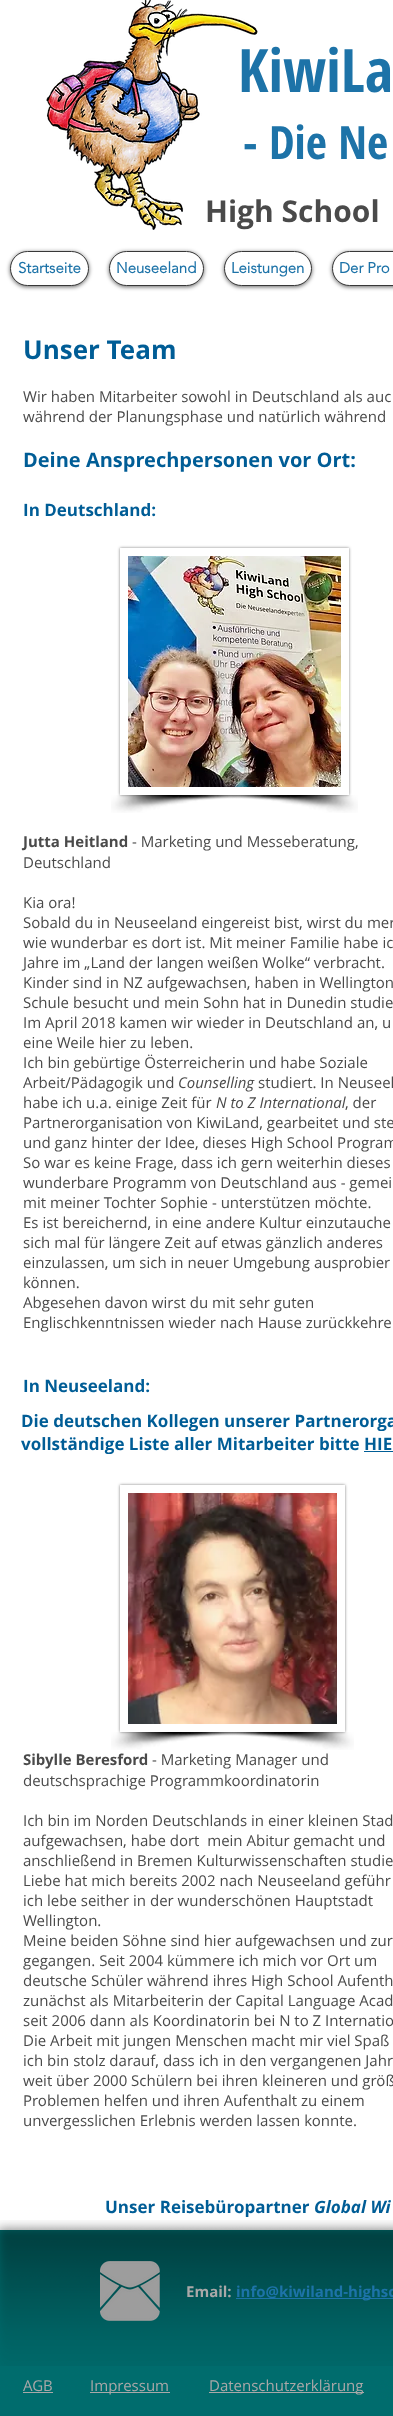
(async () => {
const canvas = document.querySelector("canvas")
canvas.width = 393
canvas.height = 2416
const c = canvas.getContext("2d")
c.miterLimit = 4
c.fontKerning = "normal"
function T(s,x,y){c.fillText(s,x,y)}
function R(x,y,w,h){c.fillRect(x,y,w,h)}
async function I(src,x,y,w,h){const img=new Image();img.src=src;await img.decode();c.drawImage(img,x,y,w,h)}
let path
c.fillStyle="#fff"
R(0,0,393,2416)
await I("1.png",46,0,212,230)
c.font="bold 60px Open Sans Condensed"
c.fillStyle="#1d73a8"
T("KiwiLa",238,92)
c.font="bold 46px Open Sans Condensed"
T("- Die Ne",243,159)
c.font="bold 30px Open Sans"
c.fillStyle="#4a4a4a"
T("High School",205,222)
c.fillStyle="#00000099"
c.filter="blur(2px)"
c.beginPath()
c.roundRect(10,252,79,35,17.5)
c.fill()
c.filter="none"
c.fillStyle="#fff"
c.beginPath()
c.roundRect(10.5,251.5,78,34,17)
c.fill()
c.strokeStyle="#383838"
c.stroke()
c.font="bold 15px 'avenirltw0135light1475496'"
c.fillStyle="#1d73a8"
T("Startseite",18,273)
c.fillStyle="#00000099"
c.filter="blur(2px)"
c.beginPath()
c.roundRect(109,252,95,35,17.5)
c.fill()
c.filter="none"
c.fillStyle="#fff"
c.beginPath()
c.roundRect(109.5,251.5,94,34,17)
c.fill()
c.stroke()
c.fillStyle="#1d73a8"
T("Neuseeland",116,273)
c.fillStyle="#00000099"
c.filter="blur(2px)"
c.beginPath()
c.roundRect(224,252,88,35,17.5)
c.fill()
c.filter="none"
c.fillStyle="#fff"
c.beginPath()
c.roundRect(224.5,251.5,87,34,17)
c.fill()
c.stroke()
c.fillStyle="#1d73a8"
T("Leistungen",231,273)
c.fillStyle="#00000099"
c.filter="blur(2px)"
c.beginPath()
c.roundRect(332,252,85,35,17.5)
c.fill()
c.filter="none"
c.fillStyle="#fff"
c.beginPath()
c.roundRect(332.5,251.5,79,34,17)
c.fill()
c.stroke()
c.fillStyle="#1d73a8"
T("Der Pro",339,273)
c.font="bold 26px Open Sans"
c.fillStyle="#005d96"
T("Unser Team",23,359)
c.font="15px Open Sans"
c.fillStyle="#4a4a4a"
T("Wir haben Mitarbeiter sowohl in Deutschland als auc",23,402)
T("während der Planungsphase und natürlich während",23,422)
c.font="bold 20px Open Sans"
c.fillStyle="#005d96"
T("Deine Ansprechpersonen vor Ort:",23,467)
c.font="bold 17px Open Sans"
T("In Deutschland:",23,516)
c.save()
path = new Path2D("M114 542h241v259h-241zm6 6h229v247h-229z")
c.clip(path,"evenodd")
c.fillStyle="#00000080"
c.filter="blur(1.5px)"
c.beginPath()
c.rect(120,548,229,247)
c.fill()
c.filter="none"
c.restore()
await I("2.png",128,556,213,231)
await I("3.png",111,795,154,18)
await I("4.png",217,795,141,18)
c.font="bold 15px Open Sans"
c.fillStyle="#4a4a4a"
T("Jutta Heitland",23,847)
c.font="15px Open Sans"
T("- Marketing und Messeberatung,",132,847)
T("Deutschland",23,868)
T("Kia ora!",23,908)
T("Sobald du in Neuseeland eingereist bist, wirst du mer",23,928)
T("wie wunderbar es dort ist. Mit meiner Familie habe ic",23,948)
T("Jahre im „Land der langen weißen Wolke“ verbracht.",23,968)
T("Kinder sind in NZ aufgewachsen, haben in Wellington",23,988)
T("Schule besucht und mein Sohn hat in Dunedin studie",23,1008)
T("Im April 2018 kamen wir wieder in Deutschland an, u",23,1028)
T("eine Weile hier zu leben.",23,1048)
T("Ich bin gebürtige Österreicherin und habe Soziale",23,1068)
T("Arbeit/Pädagogik und",23,1088)
c.font="italic 15px Open Sans"
T("Counselling",178,1088)
c.font="15px Open Sans"
T("studiert. In Neuseel",258,1088)
T("habe ich u.a. einige Zeit für",23,1108)
c.font="italic 15px Open Sans"
T("N to Z International",216,1108)
c.font="15px Open Sans"
T(", der",345,1108)
T("Partnerorganisation von KiwiLand, gearbeitet und ste",23,1128)
T("und ganz hinter der Idee, dieses High School Program",23,1148)
T("So war es keine Frage, dass ich gern weiterhin dieses",23,1168)
T("wunderbare Programm von Deutschland aus - gemei",23,1188)
T("mit meiner Tochter Sophie - unterstützen möchte.",23,1208)
T("Es ist bereichernd, in eine andere Kultur einzutauche",23,1228)
T("sich mal für längere Zeit auf etwas gänzlich anderes",23,1248)
T("einzulassen, um sich in neuer Umgebung ausprobier",23,1268)
T("können.",23,1288)
T("Abgesehen davon wirst du mit sehr guten",23,1308)
T("Englischkenntnissen wieder nach Hause zurückkehre",23,1328)
c.font="bold 17px Open Sans"
c.fillStyle="#005d96"
T("In Neuseeland:",23,1392)
T("Die deutschen Kollegen unserer Partnerorga",21,1427)
T("vollständige Liste aller Mitarbeiter bitte HIE",21,1450)
R(364,1451,29,1)
c.save()
path = new Path2D("M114 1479h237v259h-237zm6 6h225v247h-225z")
c.clip(path,"evenodd")
c.fillStyle="#00000080"
c.filter="blur(1.5px)"
c.beginPath()
c.rect(120,1485,225,247)
c.fill()
c.filter="none"
c.restore()
await I("5.png",128,1493,209,231)
await I("3.png",111,1732,154,18)
await I("6.png",214,1732,140,18)
c.font="bold 15px Open Sans"
c.fillStyle="#4a4a4a"
T("Sibylle Beresford",23,1765)
c.font="15px Open Sans"
T("- Marketing Manager und",152,1765)
T("deutschsprachige Programmkoordinatorin",23,1786)
T("Ich bin im Norden Deutschlands in einer kleinen Stad",23,1826)
T("aufgewachsen, habe dort  mein Abitur gemacht und",23,1846)
T("anschließend in Bremen Kulturwissenschaften studie",23,1866)
T("Liebe hat mich bereits 2002 nach Neuseeland geführ",23,1886)
T("ich lebe seither in der wunderschönen Hauptstadt",23,1906)
T("Wellington.",23,1926)
T("Meine beiden Söhne sind hier aufgewachsen und zur",23,1946)
T("gegangen. Seit 2004 kümmere ich mich vor Ort um",23,1966)
T("deutsche Schüler während ihres High School Aufenth",23,1986)
T("zunächst als Mitarbeiterin der Capital Language Acad",23,2006)
T("seit 2006 dann als Koordinatorin bei N to Z Internatio",23,2026)
T("Die Arbeit mit jungen Menschen macht mir viel Spaß",23,2046)
T("ich bin stolz darauf, dass ich in den vergangenen Jahr",23,2066)
T("weit über 2000 Schülern bei ihren kleineren und größ",23,2086)
T("Problemen helfen und ihren Aufenthalt zu einem",23,2106)
T("unvergesslichen Erlebnis werden lassen konnte.",23,2126)
c.font="bold 17px Open Sans"
c.fillStyle="#005d96"
T("Unser Reisebüropartner",105,2213)
c.font="italic bold 17px Open Sans"
T("Global Wi",314,2213)
c.fillStyle="#006c6d"
R(0,2230,393,186)
await I("7.png",0,2220,35,146)
await I("8.png",35,2220,358,146)
await I("9.png",100,2261,60,60)
c.font="bold 15px Open Sans"
c.fillStyle="#aaa8a8"
T("Email:",186,2297)
c.fillStyle="#1d73a8"
R(236,2298,157,1)
T("info@kiwiland-highsc",236,2297)
c.font="15px Open Sans"
c.fillStyle="#aaa8a8"
T("AGB",23,2391)
R(23,2392,30,1)
R(90,2392,80,1)
T("Impressum",90,2391)
R(209,2392,155,1)
T("Datenschutzerklärung",209,2391)
})()
